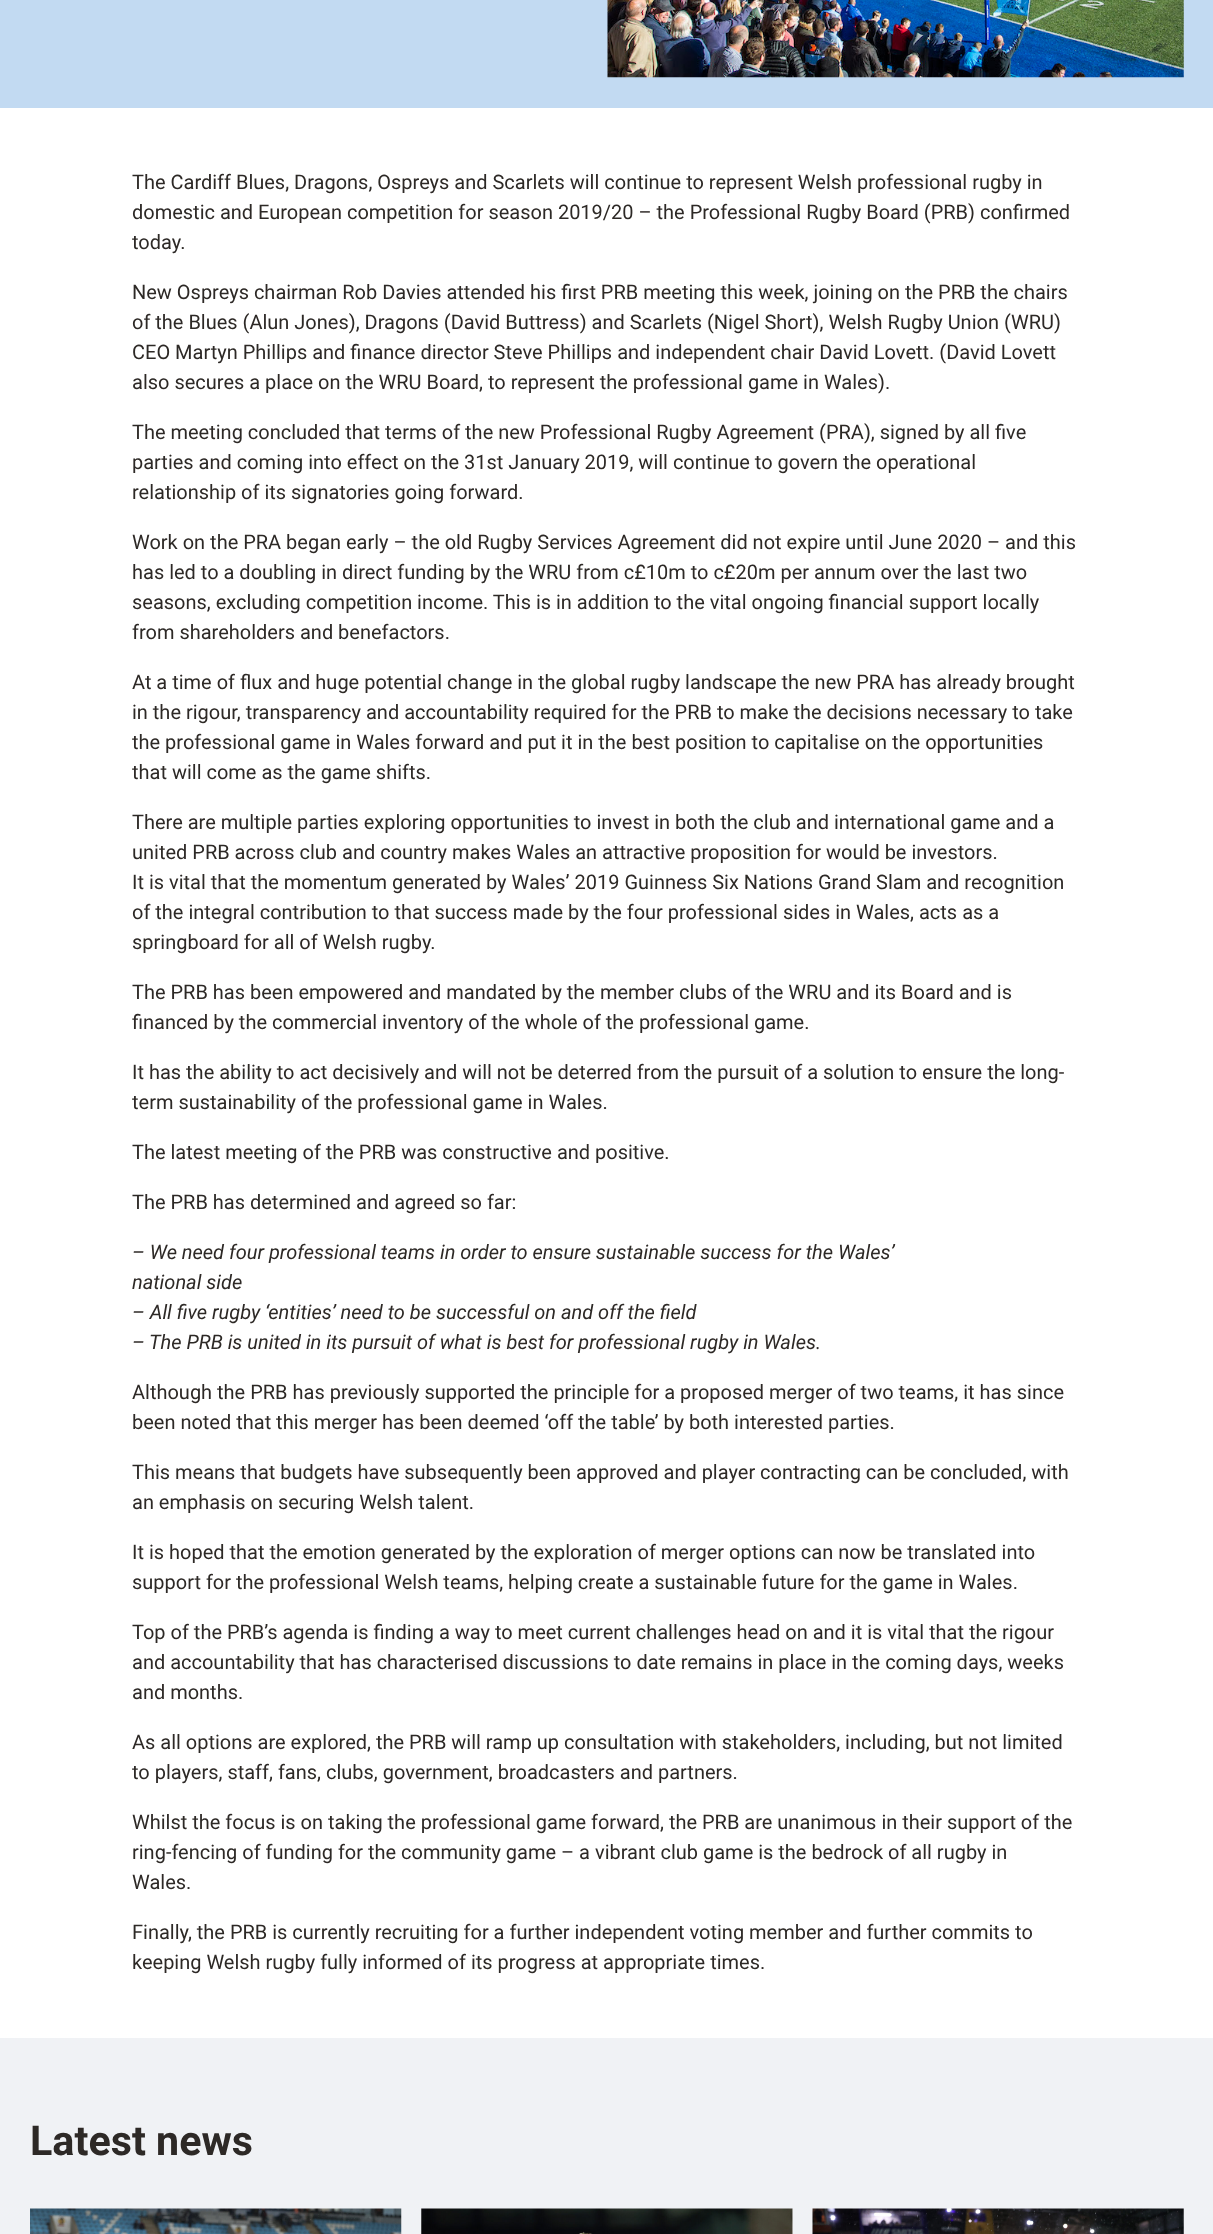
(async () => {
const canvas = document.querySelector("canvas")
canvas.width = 1213
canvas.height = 2234
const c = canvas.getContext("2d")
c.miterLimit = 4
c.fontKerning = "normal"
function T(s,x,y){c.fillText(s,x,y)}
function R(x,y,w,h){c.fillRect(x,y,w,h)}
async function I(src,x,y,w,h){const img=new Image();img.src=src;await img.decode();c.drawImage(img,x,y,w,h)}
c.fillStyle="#fff"
R(0,0,1213,2234)
c.fillStyle="#c2daf2"
R(0,0,1213,108)
await I("1.png",607,0,577,78)
c.font="20px Roboto"
c.fillStyle="#2d2926"
T("The Cardiff Blues, Dragons, Ospreys and Scarlets will continue to represent Welsh professional rugby in",132,189)
T("domestic and European competition for season 2019/20 – the Professional Rugby Board (PRB) confirmed",132,219)
T("today.",132,249)
T("New Ospreys chairman Rob Davies attended his first PRB meeting this week, joining on the PRB the chairs",132,299)
T("of the Blues (Alun Jones), Dragons (David Buttress) and Scarlets (Nigel Short), Welsh Rugby Union (WRU)",132,329)
T("CEO Martyn Phillips and finance director Steve Phillips and independent chair David Lovett. (David Lovett",132,359)
T("also secures a place on the WRU Board, to represent the professional game in Wales).",132,389)
T("The meeting concluded that terms of the new Professional Rugby Agreement (PRA), signed by all five",132,439)
T("parties and coming into effect on the 31st January 2019, will continue to govern the operational",132,469)
T("relationship of its signatories going forward.",132,499)
T("Work on the PRA began early – the old Rugby Services Agreement did not expire until June 2020 – and this",132,549)
T("has led to a doubling in direct funding by the WRU from c£10m to c£20m per annum over the last two",132,579)
T("seasons, excluding competition income. This is in addition to the vital ongoing financial support locally",132,609)
T("from shareholders and benefactors.",132,639)
T("At a time of flux and huge potential change in the global rugby landscape the new PRA has already brought",132,689)
T("in the rigour, transparency and accountability required for the PRB to make the decisions necessary to take",132,719)
T("the professional game in Wales forward and put it in the best position to capitalise on the opportunities",132,749)
T("that will come as the game shifts.",132,779)
T("There are multiple parties exploring opportunities to invest in both the club and international game and a",132,829)
T("united PRB across club and country makes Wales an attractive proposition for would be investors.",132,859)
T("It is vital that the momentum generated by Wales’ 2019 Guinness Six Nations Grand Slam and recognition",132,889)
T("of the integral contribution to that success made by the four professional sides in Wales, acts as a",132,919)
T("springboard for all of Welsh rugby.",132,949)
T("The PRB has been empowered and mandated by the member clubs of the WRU and its Board and is",132,999)
T("financed by the commercial inventory of the whole of the professional game.",132,1029)
T("It has the ability to act decisively and will not be deterred from the pursuit of a solution to ensure the long-",132,1079)
T("term sustainability of the professional game in Wales.",132,1109)
T("The latest meeting of the PRB was constructive and positive.",132,1159)
T("The PRB has determined and agreed so far:",132,1209)
c.font="italic 20px Roboto"
T("– We need four professional teams in order to ensure sustainable success for the Wales’",132,1259)
T("national side",132,1289)
T("– All five rugby ‘entities’ need to be successful on and off the field",132,1319)
T("–",132,1349)
T("The PRB is united in its pursuit of what is best for professional rugby in Wales.",149,1349)
c.font="20px Roboto"
T("Although the PRB has previously supported the principle for a proposed merger of two teams, it has since",132,1399)
T("been noted that this merger has been deemed ‘off the table’ by both interested parties.",132,1429)
T("This means that budgets have subsequently been approved and player contracting can be concluded, with",132,1479)
T("an emphasis on securing Welsh talent.",132,1509)
T("It is hoped that the emotion generated by the exploration of merger options can now be translated into",132,1559)
T("support for the professional Welsh teams, helping create a sustainable future for the game in Wales.",132,1589)
T("Top of the PRB’s agenda is finding a way to meet current challenges head on and it is vital that the rigour",132,1639)
T("and accountability that has characterised discussions to date remains in place in the coming days, weeks",132,1669)
T("and months.",132,1699)
T("As all options are explored, the PRB will ramp up consultation with stakeholders, including, but not limited",132,1749)
T("to players, staff, fans, clubs, government, broadcasters and partners.",132,1779)
T("Whilst the focus is on taking the professional game forward, the PRB are unanimous in their support of the",132,1829)
T("ring-fencing of funding for the community game – a vibrant club game is the bedrock of all rugby in",132,1859)
T("Wales.",132,1889)
T("Finally, the PRB is currently recruiting for a further independent voting member and further commits to",132,1939)
T("keeping Welsh rugby fully informed of its progress at appropriate times.",132,1969)
c.fillStyle="#f0f2f5"
R(0,2038,1213,196)
c.font="bold 41.25px Roboto"
c.fillStyle="#2d2926"
T("Latest news",30,2155)
await I("2.png",30,2208,372,26)
c.fillStyle="#fff"
R(421,2209,372,25)
await I("3.png",421,2208,372,26)
await I("4.png",812,2208,372,26)
})()
